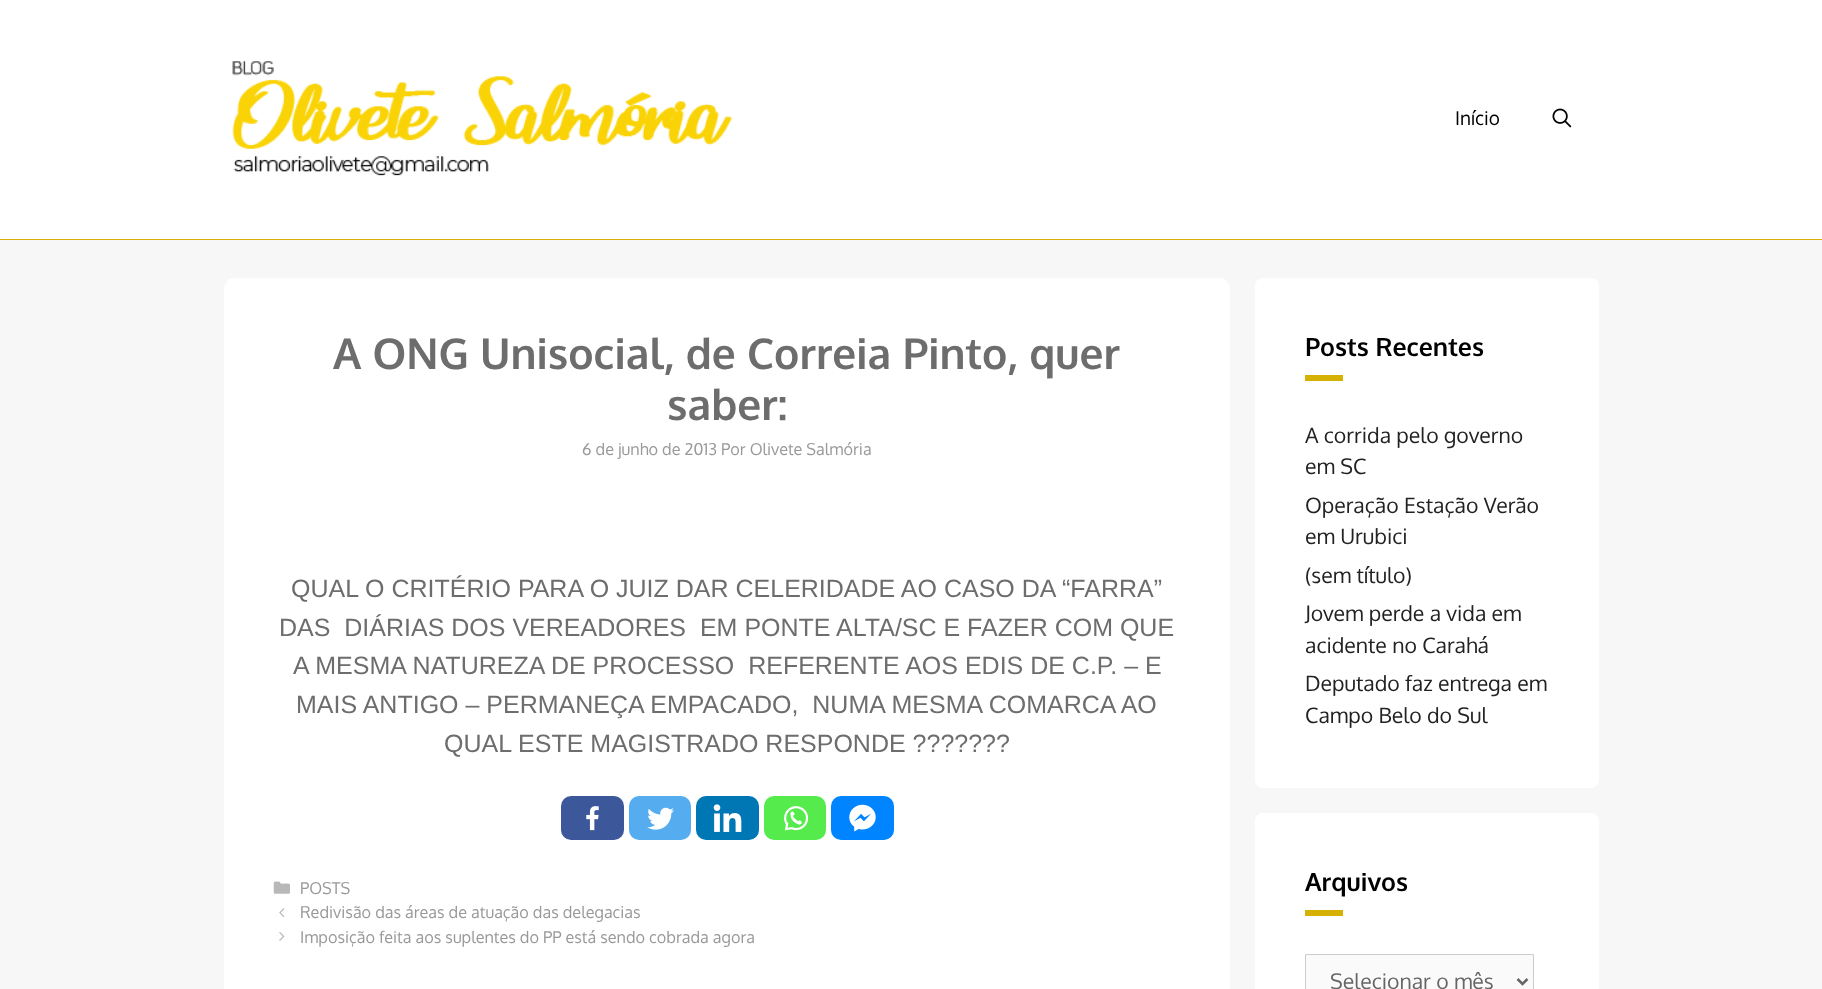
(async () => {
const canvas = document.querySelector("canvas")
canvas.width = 1822
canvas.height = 989
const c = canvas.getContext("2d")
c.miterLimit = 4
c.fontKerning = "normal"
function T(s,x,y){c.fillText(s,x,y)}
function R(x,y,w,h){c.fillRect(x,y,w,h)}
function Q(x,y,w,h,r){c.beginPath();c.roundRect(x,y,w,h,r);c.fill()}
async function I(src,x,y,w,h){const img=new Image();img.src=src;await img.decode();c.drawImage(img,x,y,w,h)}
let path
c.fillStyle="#f7f7f7"
R(0,0,1822,989)
c.fillStyle="#fff"
R(0,0,1822,239)
c.fillStyle="#d4b103"
R(0,239,1822,1)
await I("1.png",232,61,501,115)
c.font="19px Oxygen"
c.fillStyle="#000"
T("Início",1455,125)
await I("2.png",1552,108,20,20)
c.fillStyle="#fff"
Q(224,278,1006,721,10)
c.font="bold 42.5px Oxygen"
c.fillStyle="#6d6d6d"
T("A ONG Unisocial, de Correia Pinto, quer",333,369)
T("saber:",667,420)
c.font="16.25px Oxygen"
c.fillStyle="#999"
T("6 de junho de 2013 Por Olivete Salmória",582,455)
c.font="25px Liberation Sans"
c.fillStyle="#6d6d6d"
T("QUAL O CRITÉRIO PARA O JUIZ DAR CELERIDADE AO CASO DA “FARRA”",291,597)
T("DAS  DIÁRIAS DOS VEREADORES  EM PONTE ALTA/SC E FAZER COM QUE",279,636)
T("A MESMA NATUREZA DE PROCESSO  REFERENTE AOS EDIS DE C.P. – E",293,674)
T("MAIS ANTIGO – PERMANEÇA EMPACADO,  NUMA MESMA COMARCA AO",296,713)
T("QUAL ESTE MAGISTRADO RESPONDE ???????",444,752)
c.fillStyle="#3c589a"
Q(561,796,63,44,10)
await I("3.png",586,806,13,25)
c.fillStyle="#55acee"
Q(629,796,62,44,10)
await I("4.png",647,807,27,23)
c.fillStyle="#0077b5"
Q(696,796,63,44,10)
await I("5.png",713,804,29,28)
c.fillStyle="#55eb4c"
Q(764,796,62,44,10)
await I("6.png",784,806,25,25)
c.fillStyle="#0084ff"
Q(831,796,63,44,10)
await I("7.png",849,804,27,28)
await I("8.png",273,881,17,13)
c.font="16.25px Oxygen"
c.fillStyle="#999"
T("POSTS",300,894)
await I("9.png",279,908,6,9)
T("Redivisão das áreas de atuação das delegacias",300,918)
await I("10.png",279,932,6,9)
T("Imposição feita aos suplentes do PP está sendo cobrada agora",300,943)
c.fillStyle="#fff"
Q(1255,278,344,510,8)
c.font="bold 25px Oxygen"
c.fillStyle="#000"
T("Posts Recentes",1305,356)
c.fillStyle="#d4b103"
R(1305,375,38,6)
c.font="21.25px Oxygen"
c.fillStyle="#222"
T("A corrida pelo governo",1305,443)
T("em SC",1305,474)
T("Operação Estação Verão",1305,513)
T("em Urubici",1305,544)
T("(sem título)",1305,583)
T("Jovem perde a vida em",1305,621)
T("acidente no Carahá",1305,653)
T("Deputado faz entrega em",1305,691)
T("Campo Belo do Sul",1305,723)
c.fillStyle="#fff"
Q(1255,813,344,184,8)
c.font="bold 25px Oxygen"
c.fillStyle="#000"
T("Arquivos",1305,891)
c.fillStyle="#d4b103"
R(1305,910,38,6)
c.fillStyle="#fafafa"
c.beginPath()
c.rect(1305.5,954.5,228,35)
c.fill()
c.strokeStyle="#ccc"
c.stroke()
path = new Path2D("M1517.5 979l5 5l5-5")
c.strokeStyle="#666"
c.lineWidth=2.5
c.stroke(path)
c.font="21.25px Oxygen"
c.fillStyle="#666"
T("Selecionar o mês",1330,989)
})()
